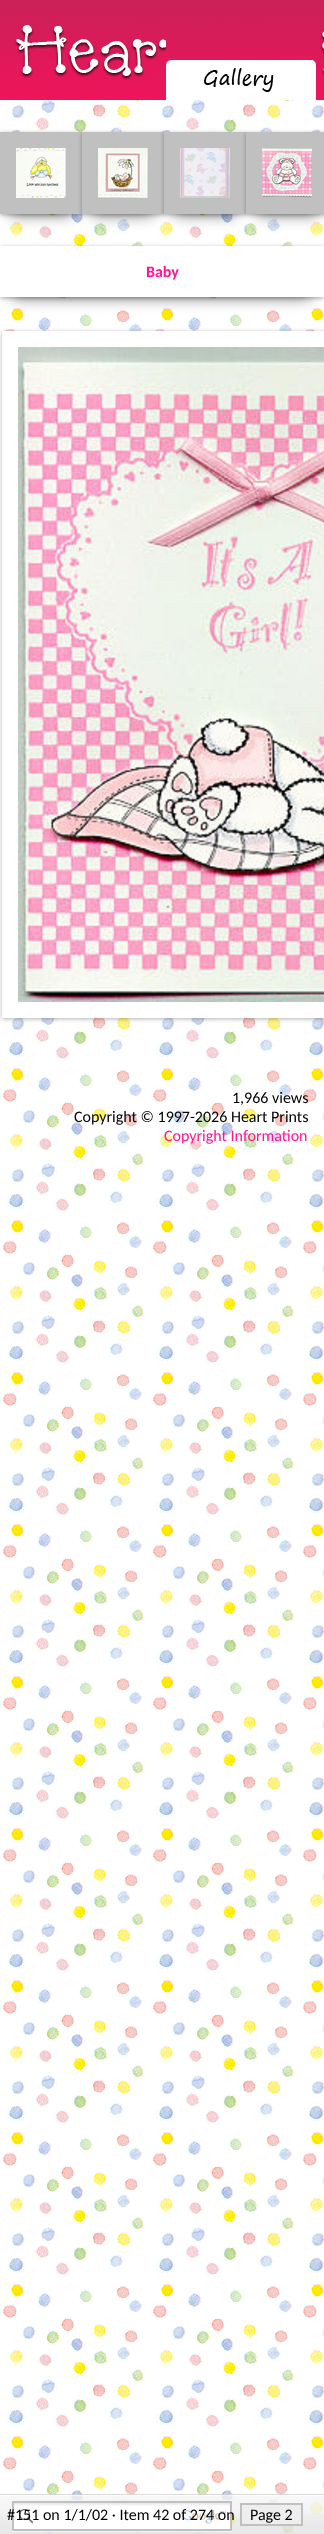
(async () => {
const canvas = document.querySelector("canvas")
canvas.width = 324
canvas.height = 2534
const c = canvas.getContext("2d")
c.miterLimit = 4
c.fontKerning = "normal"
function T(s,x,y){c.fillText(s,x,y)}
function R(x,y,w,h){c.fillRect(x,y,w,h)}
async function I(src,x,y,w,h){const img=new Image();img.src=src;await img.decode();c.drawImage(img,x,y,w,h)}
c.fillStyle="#fff"
R(0,0,324,2534)
await I("1.png",2,100,322,2434)
await I("2.png",0,0,324,100)
await I("3.png",14,25,310,55)
await I("4.png",166,25,152,75)
c.fillStyle="#0000004d"
c.filter="blur(2px)"
c.beginPath()
c.rect(0,133,82,82)
c.fill()
c.filter="none"
c.fillStyle="#00000099"
c.filter="blur(7.5px)"
c.beginPath()
c.roundRect(10,173,62,41,3)
c.fill()
c.filter="none"
c.filter="blur(7.5px)"
c.beginPath()
c.roundRect(92,173,62,41,3)
c.fill()
c.filter="none"
c.fillStyle="#c0c0c0"
R(0,132,82,82)
await I("5.png",16,148,50,50)
c.fillStyle="#0000004d"
c.filter="blur(2px)"
c.beginPath()
c.rect(82,133,82,82)
c.fill()
c.filter="none"
c.fillStyle="#00000099"
c.filter="blur(7.5px)"
c.beginPath()
c.roundRect(174,173,62,41,3)
c.fill()
c.filter="none"
c.fillStyle="#c0c0c0"
R(82,132,82,82)
await I("6.png",98,148,50,50)
c.fillStyle="#0000004d"
c.filter="blur(2px)"
c.beginPath()
c.rect(164,133,82,82)
c.fill()
c.filter="none"
c.fillStyle="#00000099"
c.filter="blur(7.5px)"
c.beginPath()
c.roundRect(256,173,62,41,3)
c.fill()
c.filter="none"
c.fillStyle="#c0c0c0"
R(164,132,82,82)
await I("7.png",180,148,50,50)
c.fillStyle="#0000004d"
c.filter="blur(2px)"
c.beginPath()
c.rect(246,133,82,82)
c.fill()
c.filter="none"
c.fillStyle="#c0c0c0"
R(246,132,78,82)
await I("8.png",262,148,50,50)
c.fillStyle="#0000004d"
c.filter="blur(2px)"
c.beginPath()
c.rect(0,247,324,51)
c.fill()
c.filter="none"
c.fillStyle="#00000099"
c.filter="blur(7.5px)"
c.beginPath()
c.roundRect(10,272,304,25,10)
c.fill()
c.filter="none"
c.fillStyle="#fff"
R(0,246,324,51)
c.font="bold 16px Carlito"
c.fillStyle="#ff1493"
T("Baby",146,277)
c.fillStyle="#0000004d"
c.filter="blur(2px)"
c.beginPath()
c.rect(2,332,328,687)
c.fill()
c.filter="none"
c.fillStyle="#fff"
R(2,331,322,687)
await I("9.png",18,347,306,655)
c.font="16px Carlito"
c.fillStyle="#000"
T("1,966 views",232,1103)
T("Copyright © 1997-2026 Heart Prints",74,1122)
c.fillStyle="#ff1493"
T("Copyright Information",164,1141)
await I("10.png",0,2494,324,40)
c.fillStyle="#fff"
R(12,2500,220,32)
await I("11.png",12,2500,220,32)
c.fillStyle="#000"
T("#151 on 1/1/02 · Item 42 of 274 on",7,2520)
c.fillStyle="#eee"
c.beginPath()
c.rect(241,2504,61,21)
c.fill()
c.strokeStyle="#c0c0c0"
c.lineWidth=2
c.stroke()
c.fillStyle="#000"
T("Page 2",250,2520)
})()
